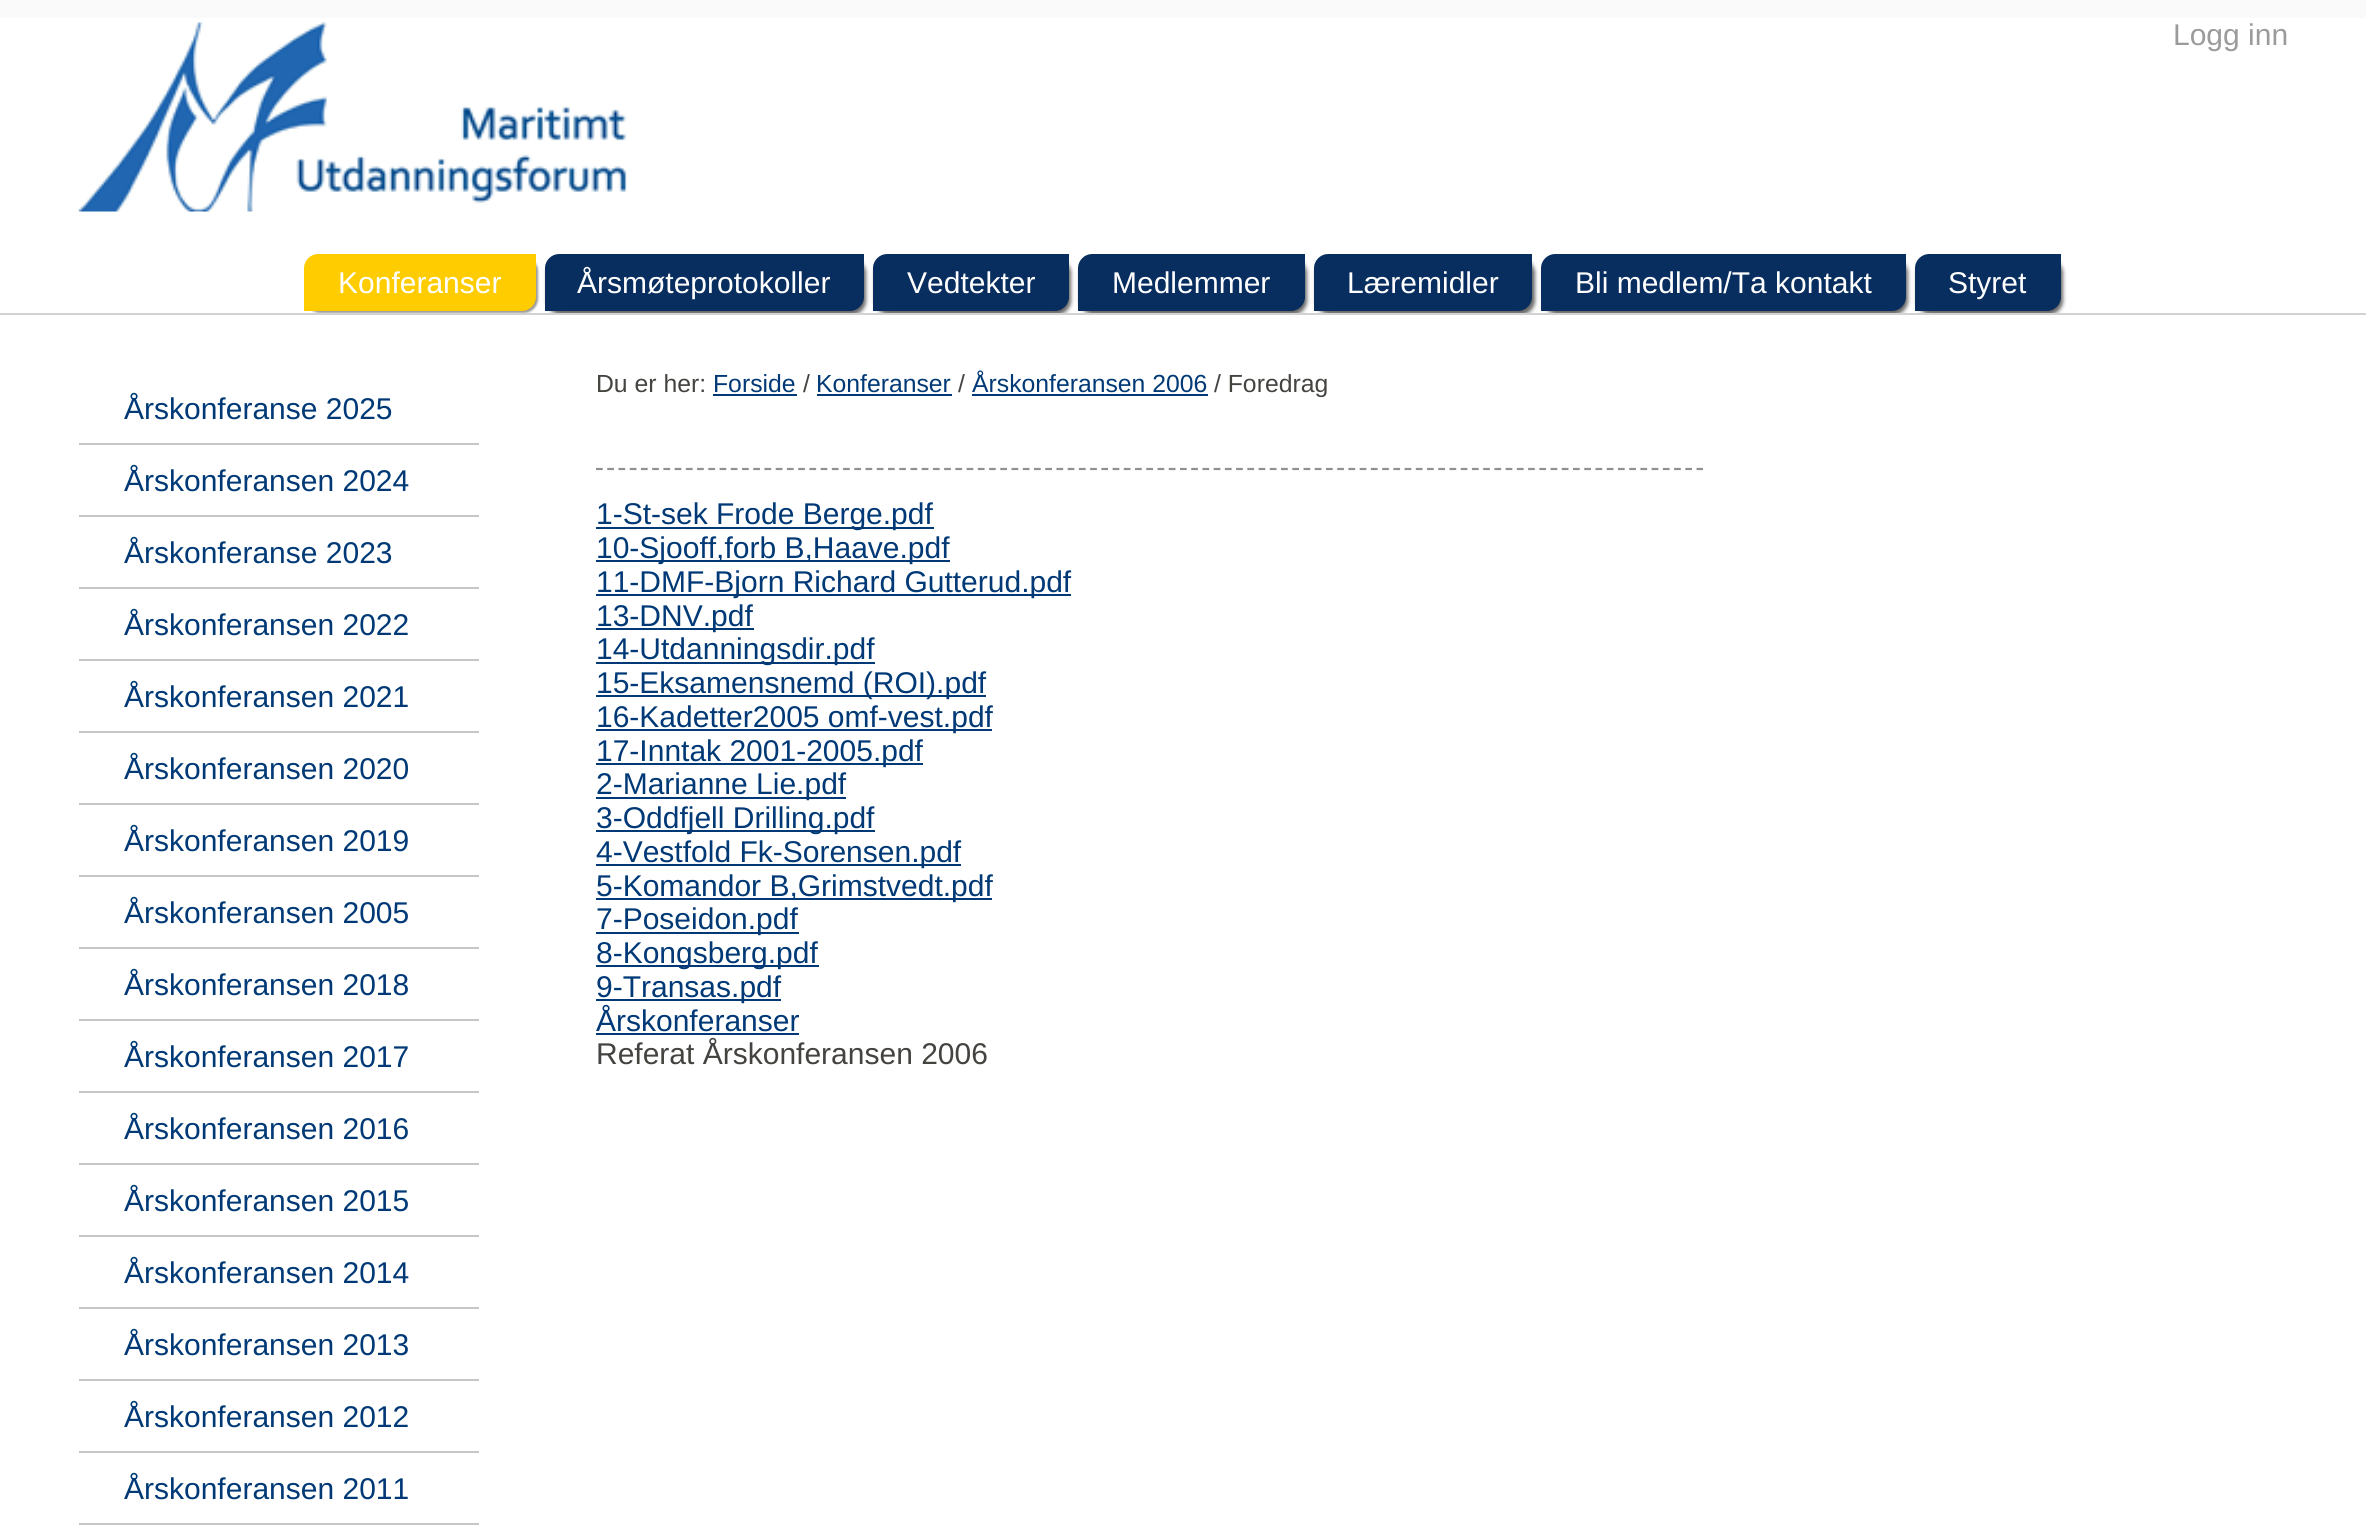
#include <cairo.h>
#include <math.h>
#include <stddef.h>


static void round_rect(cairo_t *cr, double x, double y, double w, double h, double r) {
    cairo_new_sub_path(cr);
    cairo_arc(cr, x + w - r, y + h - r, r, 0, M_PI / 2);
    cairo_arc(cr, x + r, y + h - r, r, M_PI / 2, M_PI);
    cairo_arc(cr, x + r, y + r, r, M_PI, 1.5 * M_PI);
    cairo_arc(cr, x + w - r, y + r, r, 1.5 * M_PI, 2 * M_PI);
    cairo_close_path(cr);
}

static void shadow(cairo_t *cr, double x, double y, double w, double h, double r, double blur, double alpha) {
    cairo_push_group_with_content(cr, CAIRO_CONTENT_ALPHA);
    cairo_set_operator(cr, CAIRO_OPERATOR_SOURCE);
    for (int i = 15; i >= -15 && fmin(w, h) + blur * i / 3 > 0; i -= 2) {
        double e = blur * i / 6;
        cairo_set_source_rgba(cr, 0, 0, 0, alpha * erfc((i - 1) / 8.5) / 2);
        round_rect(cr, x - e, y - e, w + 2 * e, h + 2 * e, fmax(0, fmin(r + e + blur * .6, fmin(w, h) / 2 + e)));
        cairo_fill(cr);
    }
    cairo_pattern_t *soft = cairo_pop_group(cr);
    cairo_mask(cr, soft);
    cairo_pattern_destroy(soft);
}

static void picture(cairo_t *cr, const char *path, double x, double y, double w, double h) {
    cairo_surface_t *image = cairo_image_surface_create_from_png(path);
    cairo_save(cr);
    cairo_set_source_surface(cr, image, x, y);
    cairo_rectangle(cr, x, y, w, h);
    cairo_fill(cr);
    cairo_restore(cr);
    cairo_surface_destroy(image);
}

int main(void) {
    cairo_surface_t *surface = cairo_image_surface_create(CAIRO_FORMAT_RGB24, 2366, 1537);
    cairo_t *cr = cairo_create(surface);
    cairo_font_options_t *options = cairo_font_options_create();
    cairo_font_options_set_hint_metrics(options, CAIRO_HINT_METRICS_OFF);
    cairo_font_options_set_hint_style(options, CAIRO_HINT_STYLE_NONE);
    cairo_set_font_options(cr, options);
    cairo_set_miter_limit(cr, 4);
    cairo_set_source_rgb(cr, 1, 1, 1);
    cairo_paint(cr);
    cairo_set_source_rgb(cr, 0.98, 0.98, 0.98);
    cairo_rectangle(cr, 0, 0, 2366, 18);
    cairo_fill(cr);
    picture(cr, "img1.png", 78, 22, 549, 190);
    cairo_select_font_face(cr, "Liberation Sans", CAIRO_FONT_SLANT_NORMAL, CAIRO_FONT_WEIGHT_NORMAL);
    cairo_set_font_size(cr, 30);
    cairo_set_source_rgb(cr, 0.604, 0.608, 0.604);
    cairo_move_to(cr, 2173, 45);
    cairo_show_text(cr, "Logg inn");
    cairo_set_source_rgb(cr, 0, 0, 0);
    shadow(cr, 306, 257, 232, 56, 14, 1, 0.4);
    cairo_set_source_rgb(cr, 1, 0.8, 0);
    cairo_new_path(cr);
    cairo_move_to(cr, 318, 254);
    cairo_line_to(cr, 536, 254);
    cairo_line_to(cr, 536, 297);
    cairo_curve_to(cr, 536, 304.5, 529.5, 311, 522, 311);
    cairo_line_to(cr, 304, 311);
    cairo_line_to(cr, 304, 268);
    cairo_curve_to(cr, 304, 260.5, 310.5, 254, 318, 254);
    cairo_close_path(cr);
    cairo_fill(cr);
    cairo_set_source_rgb(cr, 1, 1, 1);
    cairo_move_to(cr, 338, 293);
    cairo_show_text(cr, "Konferanser");
    cairo_set_source_rgb(cr, 0, 0, 0);
    shadow(cr, 547, 259, 319, 56, 14, 2, 0.6);
    cairo_set_source_rgb(cr, 0.035, 0.18, 0.373);
    cairo_new_path(cr);
    cairo_move_to(cr, 559, 254);
    cairo_line_to(cr, 864, 254);
    cairo_line_to(cr, 864, 297);
    cairo_curve_to(cr, 864, 304.5, 857.5, 311, 850, 311);
    cairo_line_to(cr, 545, 311);
    cairo_line_to(cr, 545, 268);
    cairo_curve_to(cr, 545, 260.5, 551.5, 254, 559, 254);
    cairo_close_path(cr);
    cairo_fill(cr);
    cairo_set_source_rgb(cr, 1, 1, 1);
    cairo_move_to(cr, 577, 293);
    cairo_show_text(cr, "Årsmøteprotokoller");
    cairo_set_source_rgb(cr, 0, 0, 0);
    shadow(cr, 875, 259, 196, 56, 14, 2, 0.6);
    cairo_set_source_rgb(cr, 0.035, 0.18, 0.373);
    cairo_new_path(cr);
    cairo_move_to(cr, 887, 254);
    cairo_line_to(cr, 1069, 254);
    cairo_line_to(cr, 1069, 297);
    cairo_curve_to(cr, 1069, 304.5, 1062.5, 311, 1055, 311);
    cairo_line_to(cr, 873, 311);
    cairo_line_to(cr, 873, 268);
    cairo_curve_to(cr, 873, 260.5, 879.5, 254, 887, 254);
    cairo_close_path(cr);
    cairo_fill(cr);
    cairo_set_source_rgb(cr, 1, 1, 1);
    cairo_move_to(cr, 907, 293);
    cairo_show_text(cr, "Vedtekter");
    cairo_set_source_rgb(cr, 0, 0, 0);
    shadow(cr, 1080, 259, 227, 56, 14, 2, 0.6);
    cairo_set_source_rgb(cr, 0.035, 0.18, 0.373);
    cairo_new_path(cr);
    cairo_move_to(cr, 1092, 254);
    cairo_line_to(cr, 1305, 254);
    cairo_line_to(cr, 1305, 297);
    cairo_curve_to(cr, 1305, 304.5, 1298.5, 311, 1291, 311);
    cairo_line_to(cr, 1078, 311);
    cairo_line_to(cr, 1078, 268);
    cairo_curve_to(cr, 1078, 260.5, 1084.5, 254, 1092, 254);
    cairo_close_path(cr);
    cairo_fill(cr);
    cairo_set_source_rgb(cr, 1, 1, 1);
    cairo_move_to(cr, 1112, 293);
    cairo_show_text(cr, "Medlemmer");
    cairo_set_source_rgb(cr, 0, 0, 0);
    shadow(cr, 1316, 259, 219, 56, 14, 2, 0.6);
    cairo_set_source_rgb(cr, 0.035, 0.18, 0.373);
    cairo_new_path(cr);
    cairo_move_to(cr, 1328, 254);
    cairo_line_to(cr, 1532, 254);
    cairo_line_to(cr, 1532, 297);
    cairo_curve_to(cr, 1532, 304.5, 1525.5, 311, 1518, 311);
    cairo_line_to(cr, 1314, 311);
    cairo_line_to(cr, 1314, 268);
    cairo_curve_to(cr, 1314, 260.5, 1320.5, 254, 1328, 254);
    cairo_close_path(cr);
    cairo_fill(cr);
    cairo_set_source_rgb(cr, 1, 1, 1);
    cairo_move_to(cr, 1347, 293);
    cairo_show_text(cr, "Læremidler");
    cairo_set_source_rgb(cr, 0, 0, 0);
    shadow(cr, 1544, 259, 364, 56, 14, 2, 0.6);
    cairo_set_source_rgb(cr, 0.035, 0.18, 0.373);
    cairo_new_path(cr);
    cairo_move_to(cr, 1555, 254);
    cairo_line_to(cr, 1906, 254);
    cairo_line_to(cr, 1906, 297);
    cairo_curve_to(cr, 1906, 304.5, 1899.5, 311, 1892, 311);
    cairo_line_to(cr, 1541, 311);
    cairo_line_to(cr, 1541, 268);
    cairo_curve_to(cr, 1541, 260.5, 1547.5, 254, 1555, 254);
    cairo_close_path(cr);
    cairo_fill(cr);
    cairo_set_source_rgb(cr, 1, 1, 1);
    cairo_move_to(cr, 1575, 293);
    cairo_show_text(cr, "Bli medlem/Ta kontakt");
    cairo_set_source_rgb(cr, 0, 0, 0);
    shadow(cr, 1917, 259, 146, 56, 14, 2, 0.6);
    cairo_set_source_rgb(cr, 0.035, 0.18, 0.373);
    cairo_new_path(cr);
    cairo_move_to(cr, 1929, 254);
    cairo_line_to(cr, 2061, 254);
    cairo_line_to(cr, 2061, 297);
    cairo_curve_to(cr, 2061, 304.5, 2054.5, 311, 2047, 311);
    cairo_line_to(cr, 1915, 311);
    cairo_line_to(cr, 1915, 268);
    cairo_curve_to(cr, 1915, 260.5, 1921.5, 254, 1929, 254);
    cairo_close_path(cr);
    cairo_fill(cr);
    cairo_set_source_rgb(cr, 1, 1, 1);
    cairo_move_to(cr, 1948, 293);
    cairo_show_text(cr, "Styret");
    cairo_rectangle(cr, 550, 315, 1510, 4);
    cairo_fill(cr);
    cairo_set_source_rgb(cr, 0.824, 0.824, 0.824);
    cairo_rectangle(cr, 0, 313, 2366, 2);
    cairo_fill(cr);
    cairo_set_source_rgb(cr, 0.776, 0.776, 0.776);
    cairo_rectangle(cr, 79, 443, 400, 2);
    cairo_fill(cr);
    cairo_set_source_rgb(cr, 0, 0.224, 0.463);
    cairo_move_to(cr, 124, 419);
    cairo_show_text(cr, "Årskonferanse 2025");
    cairo_set_source_rgb(cr, 0.776, 0.776, 0.776);
    cairo_rectangle(cr, 79, 515, 400, 2);
    cairo_fill(cr);
    cairo_set_source_rgb(cr, 0, 0.224, 0.463);
    cairo_move_to(cr, 124, 491);
    cairo_show_text(cr, "Årskonferansen 2024");
    cairo_set_source_rgb(cr, 0.776, 0.776, 0.776);
    cairo_rectangle(cr, 79, 587, 400, 2);
    cairo_fill(cr);
    cairo_set_source_rgb(cr, 0, 0.224, 0.463);
    cairo_move_to(cr, 124, 563);
    cairo_show_text(cr, "Årskonferanse 2023");
    cairo_set_source_rgb(cr, 0.776, 0.776, 0.776);
    cairo_rectangle(cr, 79, 659, 400, 2);
    cairo_fill(cr);
    cairo_set_source_rgb(cr, 0, 0.224, 0.463);
    cairo_move_to(cr, 124, 635);
    cairo_show_text(cr, "Årskonferansen 2022");
    cairo_set_source_rgb(cr, 0.776, 0.776, 0.776);
    cairo_rectangle(cr, 79, 731, 400, 2);
    cairo_fill(cr);
    cairo_set_source_rgb(cr, 0, 0.224, 0.463);
    cairo_move_to(cr, 124, 707);
    cairo_show_text(cr, "Årskonferansen 2021");
    cairo_set_source_rgb(cr, 0.776, 0.776, 0.776);
    cairo_rectangle(cr, 79, 803, 400, 2);
    cairo_fill(cr);
    cairo_set_source_rgb(cr, 0, 0.224, 0.463);
    cairo_move_to(cr, 124, 779);
    cairo_show_text(cr, "Årskonferansen 2020");
    cairo_set_source_rgb(cr, 0.776, 0.776, 0.776);
    cairo_rectangle(cr, 79, 875, 400, 2);
    cairo_fill(cr);
    cairo_set_source_rgb(cr, 0, 0.224, 0.463);
    cairo_move_to(cr, 124, 851);
    cairo_show_text(cr, "Årskonferansen 2019");
    cairo_set_source_rgb(cr, 0.776, 0.776, 0.776);
    cairo_rectangle(cr, 79, 947, 400, 2);
    cairo_fill(cr);
    cairo_set_source_rgb(cr, 0, 0.224, 0.463);
    cairo_move_to(cr, 124, 923);
    cairo_show_text(cr, "Årskonferansen 2005");
    cairo_set_source_rgb(cr, 0.776, 0.776, 0.776);
    cairo_rectangle(cr, 79, 1019, 400, 2);
    cairo_fill(cr);
    cairo_set_source_rgb(cr, 0, 0.224, 0.463);
    cairo_move_to(cr, 124, 995);
    cairo_show_text(cr, "Årskonferansen 2018");
    cairo_set_source_rgb(cr, 0.776, 0.776, 0.776);
    cairo_rectangle(cr, 79, 1091, 400, 2);
    cairo_fill(cr);
    cairo_set_source_rgb(cr, 0, 0.224, 0.463);
    cairo_move_to(cr, 124, 1067);
    cairo_show_text(cr, "Årskonferansen 2017");
    cairo_set_source_rgb(cr, 0.776, 0.776, 0.776);
    cairo_rectangle(cr, 79, 1163, 400, 2);
    cairo_fill(cr);
    cairo_set_source_rgb(cr, 0, 0.224, 0.463);
    cairo_move_to(cr, 124, 1139);
    cairo_show_text(cr, "Årskonferansen 2016");
    cairo_set_source_rgb(cr, 0.776, 0.776, 0.776);
    cairo_rectangle(cr, 79, 1235, 400, 2);
    cairo_fill(cr);
    cairo_set_source_rgb(cr, 0, 0.224, 0.463);
    cairo_move_to(cr, 124, 1211);
    cairo_show_text(cr, "Årskonferansen 2015");
    cairo_set_source_rgb(cr, 0.776, 0.776, 0.776);
    cairo_rectangle(cr, 79, 1307, 400, 2);
    cairo_fill(cr);
    cairo_set_source_rgb(cr, 0, 0.224, 0.463);
    cairo_move_to(cr, 124, 1283);
    cairo_show_text(cr, "Årskonferansen 2014");
    cairo_set_source_rgb(cr, 0.776, 0.776, 0.776);
    cairo_rectangle(cr, 79, 1379, 400, 2);
    cairo_fill(cr);
    cairo_set_source_rgb(cr, 0, 0.224, 0.463);
    cairo_move_to(cr, 124, 1355);
    cairo_show_text(cr, "Årskonferansen 2013");
    cairo_set_source_rgb(cr, 0.776, 0.776, 0.776);
    cairo_rectangle(cr, 79, 1451, 400, 2);
    cairo_fill(cr);
    cairo_set_source_rgb(cr, 0, 0.224, 0.463);
    cairo_move_to(cr, 124, 1427);
    cairo_show_text(cr, "Årskonferansen 2012");
    cairo_set_source_rgb(cr, 0.776, 0.776, 0.776);
    cairo_rectangle(cr, 79, 1523, 400, 2);
    cairo_fill(cr);
    cairo_set_source_rgb(cr, 0, 0.224, 0.463);
    cairo_move_to(cr, 124, 1499);
    cairo_show_text(cr, "Årskonferansen 2011");
    cairo_set_font_size(cr, 24.75);
    cairo_set_source_rgb(cr, 0.271, 0.263, 0.251);
    cairo_move_to(cr, 596, 392);
    cairo_show_text(cr, "Du er her:");
    cairo_set_source_rgb(cr, 0, 0.224, 0.463);
    cairo_move_to(cr, 713, 392);
    cairo_show_text(cr, "Forside");
    cairo_rectangle(cr, 713, 394, 84, 2);
    cairo_fill(cr);
    cairo_set_source_rgb(cr, 0.271, 0.263, 0.251);
    cairo_move_to(cr, 803, 392);
    cairo_show_text(cr, "/");
    cairo_set_source_rgb(cr, 0, 0.224, 0.463);
    cairo_move_to(cr, 816, 392);
    cairo_show_text(cr, "Konferanser");
    cairo_rectangle(cr, 817, 394, 135, 2);
    cairo_fill(cr);
    cairo_set_source_rgb(cr, 0.271, 0.263, 0.251);
    cairo_move_to(cr, 958, 392);
    cairo_show_text(cr, "/");
    cairo_set_source_rgb(cr, 0, 0.224, 0.463);
    cairo_move_to(cr, 972, 392);
    cairo_show_text(cr, "Årskonferansen 2006");
    cairo_set_source_rgb(cr, 0.271, 0.263, 0.251);
    cairo_move_to(cr, 1214, 392);
    cairo_show_text(cr, "/ Foredrag");
    cairo_set_source_rgb(cr, 0, 0.224, 0.463);
    cairo_rectangle(cr, 972, 394, 236, 2);
    cairo_fill(cr);
    cairo_new_path(cr);
    cairo_move_to(cr, 596, 469);
    cairo_line_to(cr, 1703, 469);
    cairo_set_source_rgb(cr, 0.565, 0.565, 0.565);
    cairo_set_line_width(cr, 2.2);
    cairo_set_dash(cr, (double[]){6.75, 4.48}, 2, 0);
    cairo_stroke(cr);
    cairo_set_source_rgb(cr, 0, 0.224, 0.463);
    cairo_rectangle(cr, 596, 527, 338, 2);
    cairo_fill(cr);
    cairo_set_font_size(cr, 30);
    cairo_move_to(cr, 596, 524);
    cairo_show_text(cr, "1-St-sek Frode Berge.pdf");
    cairo_rectangle(cr, 596, 560, 354, 2);
    cairo_fill(cr);
    cairo_move_to(cr, 596, 558);
    cairo_show_text(cr, "10-Sjooff,forb B,Haave.pdf");
    cairo_rectangle(cr, 596, 594, 475, 2);
    cairo_fill(cr);
    cairo_move_to(cr, 596, 592);
    cairo_show_text(cr, "11-DMF-Bjorn Richard Gutterud.pdf");
    cairo_rectangle(cr, 596, 628, 158, 2);
    cairo_fill(cr);
    cairo_move_to(cr, 596, 626);
    cairo_show_text(cr, "13-DNV.pdf");
    cairo_rectangle(cr, 596, 662, 279, 2);
    cairo_fill(cr);
    cairo_move_to(cr, 596, 659);
    cairo_show_text(cr, "14-Utdanningsdir.pdf");
    cairo_rectangle(cr, 596, 695, 390, 2);
    cairo_fill(cr);
    cairo_move_to(cr, 596, 693);
    cairo_show_text(cr, "15-Eksamensnemd (ROI).pdf");
    cairo_rectangle(cr, 596, 729, 396, 2);
    cairo_fill(cr);
    cairo_move_to(cr, 596, 727);
    cairo_show_text(cr, "16-Kadetter2005 omf-vest.pdf");
    cairo_rectangle(cr, 596, 763, 327, 2);
    cairo_fill(cr);
    cairo_move_to(cr, 596, 761);
    cairo_show_text(cr, "17-Inntak 2001-2005.pdf");
    cairo_rectangle(cr, 596, 797, 250, 2);
    cairo_fill(cr);
    cairo_move_to(cr, 596, 794);
    cairo_show_text(cr, "2-Marianne Lie.pdf");
    cairo_rectangle(cr, 596, 830, 279, 2);
    cairo_fill(cr);
    cairo_move_to(cr, 596, 828);
    cairo_show_text(cr, "3-Oddfjell Drilling.pdf");
    cairo_rectangle(cr, 596, 864, 365, 2);
    cairo_fill(cr);
    cairo_move_to(cr, 596, 862);
    cairo_show_text(cr, "4-Vestfold Fk-Sorensen.pdf");
    cairo_rectangle(cr, 596, 898, 396, 2);
    cairo_fill(cr);
    cairo_move_to(cr, 596, 896);
    cairo_show_text(cr, "5-Komandor B,Grimstvedt.pdf");
    cairo_rectangle(cr, 596, 932, 203, 2);
    cairo_fill(cr);
    cairo_move_to(cr, 596, 929);
    cairo_show_text(cr, "7-Poseidon.pdf");
    cairo_rectangle(cr, 596, 965, 223, 2);
    cairo_fill(cr);
    cairo_move_to(cr, 596, 963);
    cairo_show_text(cr, "8-Kongsberg.pdf");
    cairo_rectangle(cr, 596, 999, 185, 2);
    cairo_fill(cr);
    cairo_move_to(cr, 596, 997);
    cairo_show_text(cr, "9-Transas.pdf");
    cairo_move_to(cr, 596, 1031);
    cairo_show_text(cr, "Årskonferanser");
    cairo_rectangle(cr, 596, 1033, 203, 2);
    cairo_fill(cr);
    cairo_set_source_rgb(cr, 0.271, 0.263, 0.251);
    cairo_move_to(cr, 596, 1064);
    cairo_show_text(cr, "Referat Årskonferansen 2006");
    cairo_surface_write_to_png(surface, "page.png");
    cairo_font_options_destroy(options);
    cairo_destroy(cr);
    cairo_surface_destroy(surface);
    return 0;
}
